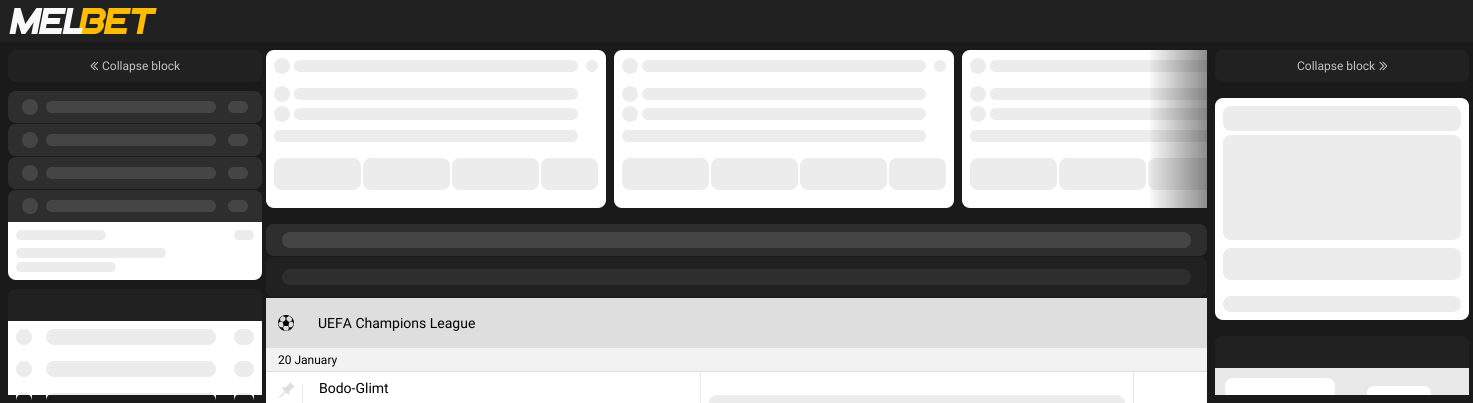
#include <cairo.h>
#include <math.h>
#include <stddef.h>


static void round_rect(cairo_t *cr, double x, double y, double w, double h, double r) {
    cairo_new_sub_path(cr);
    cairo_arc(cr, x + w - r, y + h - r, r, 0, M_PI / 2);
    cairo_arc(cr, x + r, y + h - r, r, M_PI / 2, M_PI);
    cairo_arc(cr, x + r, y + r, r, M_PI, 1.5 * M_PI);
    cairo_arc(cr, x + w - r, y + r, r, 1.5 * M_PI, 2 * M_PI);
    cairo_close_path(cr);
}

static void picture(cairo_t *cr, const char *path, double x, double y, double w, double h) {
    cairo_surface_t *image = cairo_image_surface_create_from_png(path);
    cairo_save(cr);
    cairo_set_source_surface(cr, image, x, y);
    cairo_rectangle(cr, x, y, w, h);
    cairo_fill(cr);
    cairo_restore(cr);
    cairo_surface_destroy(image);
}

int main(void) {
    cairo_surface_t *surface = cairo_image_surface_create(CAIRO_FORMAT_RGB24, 1473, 403);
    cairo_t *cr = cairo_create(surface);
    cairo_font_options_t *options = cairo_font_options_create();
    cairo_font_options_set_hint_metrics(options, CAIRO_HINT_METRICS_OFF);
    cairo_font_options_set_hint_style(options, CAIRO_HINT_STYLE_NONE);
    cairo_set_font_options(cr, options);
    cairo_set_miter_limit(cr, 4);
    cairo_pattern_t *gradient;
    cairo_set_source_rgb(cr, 0.102, 0.102, 0.102);
    cairo_paint(cr);
    cairo_set_source_rgb(cr, 0.129, 0.129, 0.129);
    cairo_rectangle(cr, 0, 0, 1473, 42);
    cairo_fill(cr);
    picture(cr, "img1.png", 9, 8, 148, 26);
    round_rect(cr, 8, 50, 254, 32, 8);
    cairo_fill(cr);
    picture(cr, "img2.png", 90, 61, 8, 10);
    cairo_select_font_face(cr, "Roboto", CAIRO_FONT_SLANT_NORMAL, CAIRO_FONT_WEIGHT_NORMAL);
    cairo_set_font_size(cr, 12);
    cairo_set_source_rgb(cr, 0.761, 0.761, 0.761);
    cairo_move_to(cr, 102, 70);
    cairo_show_text(cr, "Collapse block");
    cairo_set_source_rgb(cr, 0.18, 0.18, 0.18);
    round_rect(cr, 8, 91, 254, 32, 8);
    cairo_fill(cr);
    cairo_set_source_rgb(cr, 0.271, 0.271, 0.271);
    cairo_arc(cr, 30, 107, 8, 0, 2 * M_PI);
    cairo_fill(cr);
    round_rect(cr, 46, 101, 170, 12, 6);
    cairo_fill(cr);
    round_rect(cr, 228, 101, 20, 12, 6);
    cairo_fill(cr);
    cairo_set_source_rgb(cr, 0.18, 0.18, 0.18);
    round_rect(cr, 8, 124, 254, 32, 8);
    cairo_fill(cr);
    cairo_set_source_rgb(cr, 0.271, 0.271, 0.271);
    cairo_arc(cr, 30, 140, 8, 0, 2 * M_PI);
    cairo_fill(cr);
    round_rect(cr, 46, 134, 170, 12, 6);
    cairo_fill(cr);
    round_rect(cr, 228, 134, 20, 12, 6);
    cairo_fill(cr);
    cairo_set_source_rgb(cr, 0.18, 0.18, 0.18);
    round_rect(cr, 8, 157, 254, 32, 8);
    cairo_fill(cr);
    cairo_set_source_rgb(cr, 0.271, 0.271, 0.271);
    cairo_arc(cr, 30, 173, 8, 0, 2 * M_PI);
    cairo_fill(cr);
    round_rect(cr, 46, 167, 170, 12, 6);
    cairo_fill(cr);
    round_rect(cr, 228, 167, 20, 12, 6);
    cairo_fill(cr);
    cairo_set_source_rgb(cr, 0.18, 0.18, 0.18);
    cairo_new_path(cr);
    cairo_move_to(cr, 16, 190);
    cairo_line_to(cr, 254, 190);
    cairo_curve_to(cr, 258.5, 190, 262, 193.5, 262, 198);
    cairo_line_to(cr, 262, 222);
    cairo_line_to(cr, 8, 222);
    cairo_line_to(cr, 8, 198);
    cairo_curve_to(cr, 8, 193.5, 11.5, 190, 16, 190);
    cairo_close_path(cr);
    cairo_fill(cr);
    cairo_set_source_rgb(cr, 0.271, 0.271, 0.271);
    cairo_arc(cr, 30, 206, 8, 0, 2 * M_PI);
    cairo_fill(cr);
    round_rect(cr, 46, 200, 170, 12, 6);
    cairo_fill(cr);
    round_rect(cr, 228, 200, 20, 12, 6);
    cairo_fill(cr);
    cairo_set_source_rgb(cr, 1, 1, 1);
    cairo_new_path(cr);
    cairo_move_to(cr, 8, 222);
    cairo_line_to(cr, 262, 222);
    cairo_line_to(cr, 262, 272);
    cairo_curve_to(cr, 262, 276.5, 258.5, 280, 254, 280);
    cairo_line_to(cr, 16, 280);
    cairo_curve_to(cr, 11.5, 280, 8, 276.5, 8, 272);
    cairo_close_path(cr);
    cairo_fill(cr);
    cairo_set_source_rgb(cr, 0.922, 0.922, 0.922);
    round_rect(cr, 16, 230, 90, 10, 5);
    cairo_fill(cr);
    round_rect(cr, 16, 248, 150, 10, 5);
    cairo_fill(cr);
    round_rect(cr, 16, 262, 100, 10, 5);
    cairo_fill(cr);
    round_rect(cr, 234, 230, 20, 10, 5);
    cairo_fill(cr);
    cairo_set_source_rgb(cr, 0.129, 0.129, 0.129);
    cairo_new_path(cr);
    cairo_move_to(cr, 16, 289);
    cairo_line_to(cr, 254, 289);
    cairo_curve_to(cr, 258.5, 289, 262, 292.5, 262, 297);
    cairo_line_to(cr, 262, 321);
    cairo_line_to(cr, 8, 321);
    cairo_line_to(cr, 8, 297);
    cairo_curve_to(cr, 8, 292.5, 11.5, 289, 16, 289);
    cairo_close_path(cr);
    cairo_fill(cr);
    cairo_set_source_rgb(cr, 1, 1, 1);
    cairo_rectangle(cr, 8, 321, 254, 74);
    cairo_fill(cr);
    cairo_set_source_rgb(cr, 0.922, 0.922, 0.922);
    cairo_arc(cr, 24, 337, 8, 0, 2 * M_PI);
    cairo_fill(cr);
    round_rect(cr, 46, 329, 170, 16, 8);
    cairo_fill(cr);
    round_rect(cr, 234, 329, 20, 16, 8);
    cairo_fill(cr);
    cairo_arc(cr, 24, 369, 8, 0, 2 * M_PI);
    cairo_fill(cr);
    round_rect(cr, 46, 361, 170, 16, 8);
    cairo_fill(cr);
    round_rect(cr, 234, 361, 20, 16, 8);
    cairo_fill(cr);
    cairo_new_path(cr);
    cairo_move_to(cr, 24, 393);
    cairo_curve_to(cr, 28.5, 393, 32, 396.5, 32, 401);
    cairo_line_to(cr, 32, 395);
    cairo_line_to(cr, 16, 395);
    cairo_line_to(cr, 16, 401);
    cairo_curve_to(cr, 16, 396.5, 19.5, 393, 24, 393);
    cairo_close_path(cr);
    cairo_fill(cr);
    cairo_new_path(cr);
    cairo_move_to(cr, 54, 393);
    cairo_line_to(cr, 208, 393);
    cairo_curve_to(cr, 212.5, 393, 216, 396.5, 216, 401);
    cairo_line_to(cr, 216, 395);
    cairo_line_to(cr, 46, 395);
    cairo_line_to(cr, 46, 401);
    cairo_curve_to(cr, 46, 396.5, 49.5, 393, 54, 393);
    cairo_close_path(cr);
    cairo_fill(cr);
    cairo_new_path(cr);
    cairo_move_to(cr, 242, 393);
    cairo_line_to(cr, 246, 393);
    cairo_curve_to(cr, 250.5, 393, 254, 396.5, 254, 401);
    cairo_line_to(cr, 254, 395);
    cairo_line_to(cr, 234, 395);
    cairo_line_to(cr, 234, 401);
    cairo_curve_to(cr, 234, 396.5, 237.5, 393, 242, 393);
    cairo_close_path(cr);
    cairo_fill(cr);
    cairo_set_source_rgb(cr, 0.129, 0.129, 0.129);
    round_rect(cr, 1215, 50, 254, 32, 8);
    cairo_fill(cr);
    cairo_set_source_rgb(cr, 0.761, 0.761, 0.761);
    cairo_move_to(cr, 1297, 70);
    cairo_show_text(cr, "Collapse block");
    picture(cr, "img3.png", 1379, 61, 8, 10);
    cairo_set_source_rgb(cr, 1, 1, 1);
    round_rect(cr, 1215, 98, 254, 222, 8);
    cairo_fill(cr);
    cairo_set_source_rgb(cr, 0.922, 0.922, 0.922);
    round_rect(cr, 1223, 106, 238, 25, 8);
    cairo_fill(cr);
    round_rect(cr, 1223, 135, 238, 105, 8);
    cairo_fill(cr);
    round_rect(cr, 1223, 248, 238, 32, 8);
    cairo_fill(cr);
    round_rect(cr, 1223, 296, 238, 16, 8);
    cairo_fill(cr);
    cairo_set_source_rgb(cr, 0.129, 0.129, 0.129);
    cairo_new_path(cr);
    cairo_move_to(cr, 1223, 336);
    cairo_line_to(cr, 1461, 336);
    cairo_curve_to(cr, 1465.5, 336, 1469, 339.5, 1469, 344);
    cairo_line_to(cr, 1469, 368);
    cairo_line_to(cr, 1215, 368);
    cairo_line_to(cr, 1215, 344);
    cairo_curve_to(cr, 1215, 339.5, 1218.5, 336, 1223, 336);
    cairo_close_path(cr);
    cairo_fill(cr);
    cairo_set_source_rgb(cr, 0.91, 0.91, 0.91);
    cairo_rectangle(cr, 1215, 368, 254, 27);
    cairo_fill(cr);
    cairo_set_source_rgb(cr, 1, 1, 1);
    cairo_new_path(cr);
    cairo_move_to(cr, 1233, 378);
    cairo_line_to(cr, 1327, 378);
    cairo_curve_to(cr, 1331.5, 378, 1335, 381.5, 1335, 386);
    cairo_line_to(cr, 1335, 395);
    cairo_line_to(cr, 1225, 395);
    cairo_line_to(cr, 1225, 386);
    cairo_curve_to(cr, 1225, 381.5, 1228.5, 378, 1233, 378);
    cairo_close_path(cr);
    cairo_fill(cr);
    cairo_save(cr);
    cairo_rectangle(cr, 1215, 50, 254, 345);
    cairo_clip(cr);
    round_rect(cr, 1367, 386, 64, 14, 7);
    cairo_fill(cr);
    cairo_restore(cr);
    round_rect(cr, 266, 50, 340, 158, 8);
    cairo_fill(cr);
    cairo_set_source_rgb(cr, 0.922, 0.922, 0.922);
    cairo_arc(cr, 282, 66, 8, 0, 2 * M_PI);
    cairo_fill(cr);
    round_rect(cr, 294, 60, 284, 12, 6);
    cairo_fill(cr);
    cairo_arc(cr, 282, 94, 8, 0, 2 * M_PI);
    cairo_fill(cr);
    round_rect(cr, 294, 88, 284, 12, 6);
    cairo_fill(cr);
    cairo_arc(cr, 282, 114, 8, 0, 2 * M_PI);
    cairo_fill(cr);
    round_rect(cr, 294, 108, 284, 12, 6);
    cairo_fill(cr);
    cairo_arc(cr, 592, 66, 6, 0, 2 * M_PI);
    cairo_fill(cr);
    round_rect(cr, 274, 130, 304, 12, 6);
    cairo_fill(cr);
    round_rect(cr, 274, 158, 87, 32, 8);
    cairo_fill(cr);
    round_rect(cr, 363, 158, 87, 32, 8);
    cairo_fill(cr);
    round_rect(cr, 452, 158, 87, 32, 8);
    cairo_fill(cr);
    round_rect(cr, 541, 158, 57, 32, 8);
    cairo_fill(cr);
    cairo_set_source_rgb(cr, 1, 1, 1);
    round_rect(cr, 614, 50, 340, 158, 8);
    cairo_fill(cr);
    cairo_set_source_rgb(cr, 0.922, 0.922, 0.922);
    cairo_arc(cr, 630, 66, 8, 0, 2 * M_PI);
    cairo_fill(cr);
    round_rect(cr, 642, 60, 284, 12, 6);
    cairo_fill(cr);
    cairo_arc(cr, 630, 94, 8, 0, 2 * M_PI);
    cairo_fill(cr);
    round_rect(cr, 642, 88, 284, 12, 6);
    cairo_fill(cr);
    cairo_arc(cr, 630, 114, 8, 0, 2 * M_PI);
    cairo_fill(cr);
    round_rect(cr, 642, 108, 284, 12, 6);
    cairo_fill(cr);
    cairo_arc(cr, 940, 66, 6, 0, 2 * M_PI);
    cairo_fill(cr);
    round_rect(cr, 622, 130, 304, 12, 6);
    cairo_fill(cr);
    round_rect(cr, 622, 158, 87, 32, 8);
    cairo_fill(cr);
    round_rect(cr, 711, 158, 87, 32, 8);
    cairo_fill(cr);
    round_rect(cr, 800, 158, 87, 32, 8);
    cairo_fill(cr);
    round_rect(cr, 889, 158, 57, 32, 8);
    cairo_fill(cr);
    cairo_set_source_rgb(cr, 1, 1, 1);
    cairo_new_path(cr);
    cairo_move_to(cr, 970, 50);
    cairo_line_to(cr, 1207, 50);
    cairo_line_to(cr, 1207, 208);
    cairo_line_to(cr, 970, 208);
    cairo_curve_to(cr, 965.5, 208, 962, 204.5, 962, 200);
    cairo_line_to(cr, 962, 58);
    cairo_curve_to(cr, 962, 53.5, 965.5, 50, 970, 50);
    cairo_close_path(cr);
    cairo_fill(cr);
    cairo_set_source_rgb(cr, 0.922, 0.922, 0.922);
    cairo_arc(cr, 978, 66, 8, 0, 2 * M_PI);
    cairo_fill(cr);
    cairo_new_path(cr);
    cairo_move_to(cr, 996, 60);
    cairo_line_to(cr, 1207, 60);
    cairo_line_to(cr, 1207, 72);
    cairo_line_to(cr, 996, 72);
    cairo_curve_to(cr, 992.5, 72, 990, 69.5, 990, 66);
    cairo_curve_to(cr, 990, 62.5, 992.5, 60, 996, 60);
    cairo_close_path(cr);
    cairo_fill(cr);
    cairo_arc(cr, 978, 94, 8, 0, 2 * M_PI);
    cairo_fill(cr);
    cairo_new_path(cr);
    cairo_move_to(cr, 996, 88);
    cairo_line_to(cr, 1207, 88);
    cairo_line_to(cr, 1207, 100);
    cairo_line_to(cr, 996, 100);
    cairo_curve_to(cr, 992.5, 100, 990, 97.5, 990, 94);
    cairo_curve_to(cr, 990, 90.5, 992.5, 88, 996, 88);
    cairo_close_path(cr);
    cairo_fill(cr);
    cairo_arc(cr, 978, 114, 8, 0, 2 * M_PI);
    cairo_fill(cr);
    cairo_new_path(cr);
    cairo_move_to(cr, 996, 108);
    cairo_line_to(cr, 1207, 108);
    cairo_line_to(cr, 1207, 120);
    cairo_line_to(cr, 996, 120);
    cairo_curve_to(cr, 992.5, 120, 990, 117.5, 990, 114);
    cairo_curve_to(cr, 990, 110.5, 992.5, 108, 996, 108);
    cairo_close_path(cr);
    cairo_fill(cr);
    cairo_new_path(cr);
    cairo_move_to(cr, 976, 130);
    cairo_line_to(cr, 1207, 130);
    cairo_line_to(cr, 1207, 142);
    cairo_line_to(cr, 976, 142);
    cairo_curve_to(cr, 972.5, 142, 970, 139.5, 970, 136);
    cairo_curve_to(cr, 970, 132.5, 972.5, 130, 976, 130);
    cairo_close_path(cr);
    cairo_fill(cr);
    round_rect(cr, 970, 158, 87, 32, 8);
    cairo_fill(cr);
    round_rect(cr, 1059, 158, 87, 32, 8);
    cairo_fill(cr);
    cairo_new_path(cr);
    cairo_move_to(cr, 1156, 158);
    cairo_line_to(cr, 1207, 158);
    cairo_line_to(cr, 1207, 190);
    cairo_line_to(cr, 1156, 190);
    cairo_curve_to(cr, 1151.5, 190, 1148, 186.5, 1148, 182);
    cairo_line_to(cr, 1148, 166);
    cairo_curve_to(cr, 1148, 161.5, 1151.5, 158, 1156, 158);
    cairo_close_path(cr);
    cairo_fill(cr);
    gradient = cairo_pattern_create_linear(1147, 133, 1207, 133);
    cairo_pattern_add_color_stop_rgba(gradient, 0, 0.102, 0.102, 0.102, 0);
    cairo_pattern_add_color_stop_rgba(gradient, 1, 0.102, 0.102, 0.102, 0.5);
    cairo_set_source(cr, gradient);
    cairo_pattern_destroy(gradient);
    cairo_rectangle(cr, 1150, 50, 57, 158);
    cairo_fill(cr);
    cairo_set_source_rgb(cr, 0.18, 0.18, 0.18);
    round_rect(cr, 266, 224, 941, 32, 8);
    cairo_fill(cr);
    cairo_set_source_rgb(cr, 0.271, 0.271, 0.271);
    round_rect(cr, 282, 232, 909, 16, 8);
    cairo_fill(cr);
    cairo_set_source_rgb(cr, 0.129, 0.129, 0.129);
    round_rect(cr, 266, 257, 941, 40, 8);
    cairo_fill(cr);
    cairo_set_source_rgb(cr, 0.18, 0.18, 0.18);
    round_rect(cr, 282, 269, 909, 16, 8);
    cairo_fill(cr);
    cairo_set_source_rgb(cr, 1, 1, 1);
    cairo_rectangle(cr, 266, 372, 941, 31);
    cairo_fill(cr);
    cairo_set_source_rgb(cr, 0.871, 0.871, 0.871);
    cairo_rectangle(cr, 266, 298, 415, 50);
    cairo_fill(cr);
    picture(cr, "img4.png", 278, 315, 16, 16);
    cairo_set_font_size(cr, 14);
    cairo_set_source_rgb(cr, 0, 0, 0);
    cairo_move_to(cr, 318, 328);
    cairo_show_text(cr, "UEFA Champions League");
    cairo_set_source_rgb(cr, 0.871, 0.871, 0.871);
    cairo_rectangle(cr, 681, 298, 526, 50);
    cairo_fill(cr);
    cairo_set_source_rgb(cr, 0.949, 0.949, 0.949);
    cairo_rectangle(cr, 266, 348, 941, 23);
    cairo_fill(cr);
    cairo_set_source_rgb(cr, 0.871, 0.871, 0.871);
    cairo_rectangle(cr, 266, 371, 941, 1);
    cairo_fill(cr);
    cairo_set_font_size(cr, 12);
    cairo_set_source_rgb(cr, 0, 0, 0);
    cairo_move_to(cr, 278, 364);
    cairo_show_text(cr, "20 January");
    picture(cr, "img5.png", 278, 382, 17, 16);
    cairo_set_source_rgb(cr, 0.91, 0.91, 0.91);
    cairo_rectangle(cr, 302, 384, 1, 19);
    cairo_fill(cr);
    cairo_set_font_size(cr, 14);
    cairo_set_source_rgb(cr, 0, 0, 0);
    cairo_move_to(cr, 319, 393);
    cairo_show_text(cr, "Bodo-Glimt");
    cairo_set_source_rgb(cr, 0.91, 0.91, 0.91);
    cairo_rectangle(cr, 700, 372, 1, 31);
    cairo_fill(cr);
    cairo_set_source_rgb(cr, 0.922, 0.922, 0.922);
    round_rect(cr, 709, 395, 416, 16, 8);
    cairo_fill(cr);
    cairo_set_source_rgb(cr, 0.91, 0.91, 0.91);
    cairo_rectangle(cr, 1133, 372, 1, 31);
    cairo_fill(cr);
    cairo_surface_write_to_png(surface, "page.png");
    cairo_font_options_destroy(options);
    cairo_destroy(cr);
    cairo_surface_destroy(surface);
    return 0;
}
